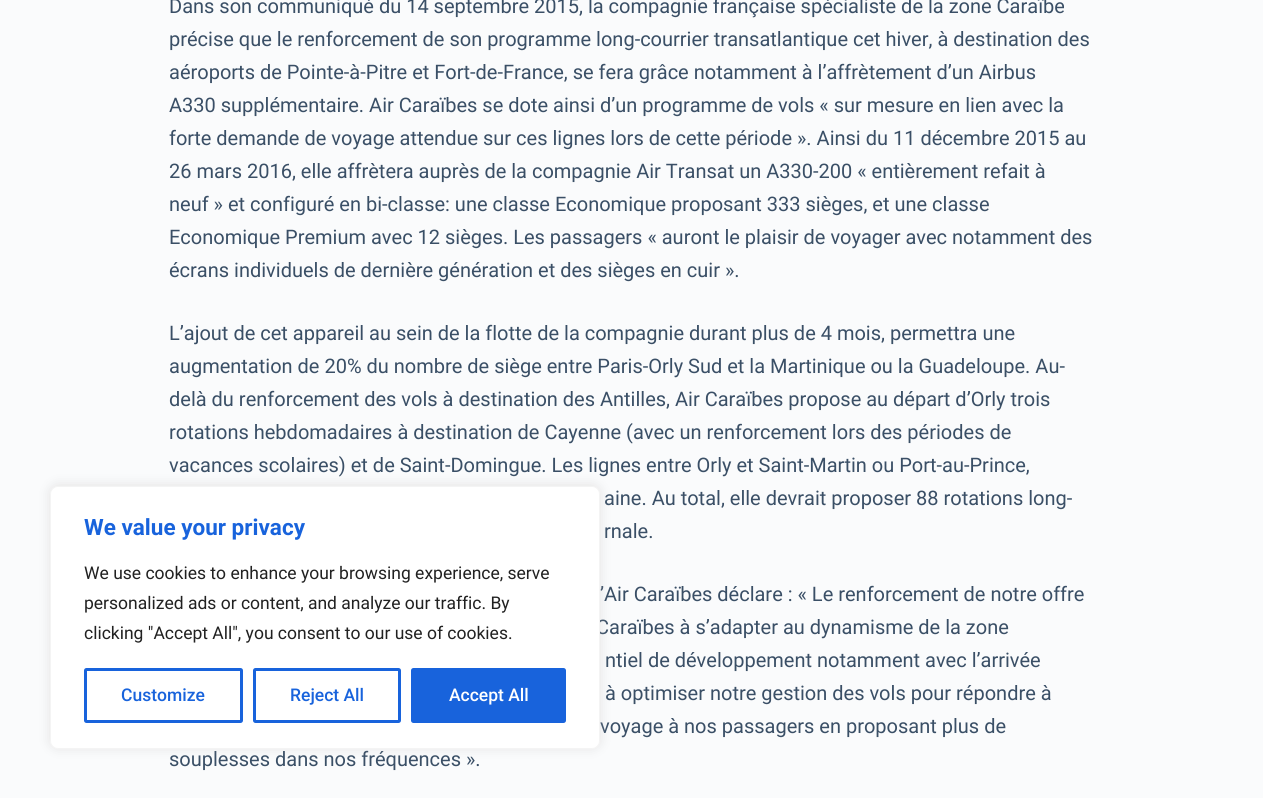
#include <cairo.h>
#include <math.h>
#include <stddef.h>


static void round_rect(cairo_t *cr, double x, double y, double w, double h, double r) {
    cairo_new_sub_path(cr);
    cairo_arc(cr, x + w - r, y + h - r, r, 0, M_PI / 2);
    cairo_arc(cr, x + r, y + h - r, r, M_PI / 2, M_PI);
    cairo_arc(cr, x + r, y + r, r, M_PI, 1.5 * M_PI);
    cairo_arc(cr, x + w - r, y + r, r, 1.5 * M_PI, 2 * M_PI);
    cairo_close_path(cr);
}

static void shadow(cairo_t *cr, double x, double y, double w, double h, double r, double blur, double alpha) {
    cairo_push_group_with_content(cr, CAIRO_CONTENT_ALPHA);
    cairo_set_operator(cr, CAIRO_OPERATOR_SOURCE);
    for (int i = 15; i >= -15 && fmin(w, h) + blur * i / 3 > 0; i -= 2) {
        double e = blur * i / 6;
        cairo_set_source_rgba(cr, 0, 0, 0, alpha * erfc((i - 1) / 8.5) / 2);
        round_rect(cr, x - e, y - e, w + 2 * e, h + 2 * e, fmax(0, fmin(r + e + blur * .6, fmin(w, h) / 2 + e)));
        cairo_fill(cr);
    }
    cairo_pattern_t *soft = cairo_pop_group(cr);
    cairo_mask(cr, soft);
    cairo_pattern_destroy(soft);
}

int main(void) {
    cairo_surface_t *surface = cairo_image_surface_create(CAIRO_FORMAT_RGB24, 1263, 798);
    cairo_t *cr = cairo_create(surface);
    cairo_font_options_t *options = cairo_font_options_create();
    cairo_font_options_set_hint_metrics(options, CAIRO_HINT_METRICS_OFF);
    cairo_font_options_set_hint_style(options, CAIRO_HINT_STYLE_NONE);
    cairo_set_font_options(cr, options);
    cairo_set_miter_limit(cr, 4);
    cairo_set_source_rgb(cr, 0.98, 0.984, 0.988);
    cairo_paint(cr);
    cairo_select_font_face(cr, "Roboto", CAIRO_FONT_SLANT_NORMAL, CAIRO_FONT_WEIGHT_NORMAL);
    cairo_set_font_size(cr, 20);
    cairo_set_source_rgb(cr, 0.227, 0.31, 0.4);
    cairo_move_to(cr, 169, 13);
    cairo_show_text(cr, "Dans son communiqué du 14 septembre 2015, la compagnie française spécialiste de la zone Caraïbe");
    cairo_move_to(cr, 169, 46);
    cairo_show_text(cr, "précise que le renforcement de son programme long-courrier transatlantique cet hiver, à destination des");
    cairo_move_to(cr, 169, 79);
    cairo_show_text(cr, "aéroports de Pointe-à-Pitre et Fort-de-France, se fera grâce notamment à l’affrètement d’un Airbus");
    cairo_move_to(cr, 169, 112);
    cairo_show_text(cr, "A330 supplémentaire. Air Caraïbes se dote ainsi d’un programme de vols « sur mesure en lien avec la");
    cairo_move_to(cr, 169, 145);
    cairo_show_text(cr, "forte demande de voyage attendue sur ces lignes lors de cette période ». Ainsi du 11 décembre 2015 au");
    cairo_move_to(cr, 169, 178);
    cairo_show_text(cr, "26 mars 2016, elle affrètera auprès de la compagnie Air Transat un A330-200 « entièrement refait à");
    cairo_move_to(cr, 169, 211);
    cairo_show_text(cr, "neuf » et configuré en bi-classe: une classe Economique proposant 333 sièges, et une classe");
    cairo_move_to(cr, 169, 244);
    cairo_show_text(cr, "Economique Premium avec 12 sièges. Les passagers « auront le plaisir de voyager avec notamment des");
    cairo_move_to(cr, 169, 277);
    cairo_show_text(cr, "écrans individuels de dernière génération et des sièges en cuir ».");
    cairo_move_to(cr, 169, 340);
    cairo_show_text(cr, "L’ajout de cet appareil au sein de la flotte de la compagnie durant plus de 4 mois, permettra une");
    cairo_move_to(cr, 169, 373);
    cairo_show_text(cr, "augmentation de 20% du nombre de siège entre Paris-Orly Sud et la Martinique ou la Guadeloupe. Au-");
    cairo_move_to(cr, 169, 406);
    cairo_show_text(cr, "delà du renforcement des vols à destination des Antilles, Air Caraïbes propose au départ d’Orly trois");
    cairo_move_to(cr, 169, 439);
    cairo_show_text(cr, "rotations hebdomadaires à destination de Cayenne (avec un renforcement lors des périodes de");
    cairo_move_to(cr, 169, 472);
    cairo_show_text(cr, "vacances scolaires) et de Saint-Domingue. Les lignes entre Orly et Saint-Martin ou Port-au-Prince,");
    cairo_move_to(cr, 604, 505);
    cairo_show_text(cr, "aine. Au total, elle devrait proposer 88 rotations long-");
    cairo_move_to(cr, 604, 538);
    cairo_show_text(cr, "rnale.");
    cairo_move_to(cr, 600, 601);
    cairo_show_text(cr, "’Air Caraïbes déclare : « Le renforcement de notre offre");
    cairo_move_to(cr, 596, 634);
    cairo_show_text(cr, "Caraïbes à s’adapter au dynamisme de la zone");
    cairo_move_to(cr, 605, 667);
    cairo_show_text(cr, "ntiel de développement notamment avec l’arrivée");
    cairo_move_to(cr, 605, 700);
    cairo_show_text(cr, "à optimiser notre gestion des vols pour répondre à");
    cairo_move_to(cr, 600, 733);
    cairo_show_text(cr, "voyage à nos passagers en proposant plus de");
    cairo_move_to(cr, 169, 766);
    cairo_show_text(cr, "souplesses dans nos fréquences ».");
    cairo_set_source_rgb(cr, 0.675, 0.671, 0.671);
    shadow(cr, 50, 485, 550, 263, 8, 6, 0.3);
    cairo_set_source_rgb(cr, 1, 1, 1);
    round_rect(cr, 50.5, 486.5, 549, 262, 7.5);
    cairo_fill_preserve(cr);
    cairo_set_source_rgb(cr, 0.957, 0.957, 0.957);
    cairo_set_line_width(cr, 1);
    cairo_stroke(cr);
    cairo_select_font_face(cr, "Roboto", CAIRO_FONT_SLANT_NORMAL, CAIRO_FONT_WEIGHT_BOLD);
    cairo_set_font_size(cr, 22.5);
    cairo_set_source_rgb(cr, 0.094, 0.388, 0.863);
    cairo_move_to(cr, 84, 535);
    cairo_show_text(cr, "We value your privacy");
    cairo_select_font_face(cr, "Roboto", CAIRO_FONT_SLANT_NORMAL, CAIRO_FONT_WEIGHT_NORMAL);
    cairo_set_font_size(cr, 17.5);
    cairo_set_source_rgb(cr, 0.129, 0.129, 0.129);
    cairo_move_to(cr, 84, 579);
    cairo_show_text(cr, "We use cookies to enhance your browsing experience, serve");
    cairo_move_to(cr, 84, 609);
    cairo_show_text(cr, "personalized ads or content, and analyze our traffic. By");
    cairo_move_to(cr, 84, 639);
    cairo_show_text(cr, "clicking \"Accept All\", you consent to our use of cookies.");
    round_rect(cr, 85.5, 669.5, 156, 52, 1);
    cairo_set_source_rgb(cr, 0.094, 0.388, 0.863);
    cairo_set_line_width(cr, 3);
    cairo_stroke(cr);
    cairo_select_font_face(cr, "Roboto Medium", CAIRO_FONT_SLANT_NORMAL, CAIRO_FONT_WEIGHT_NORMAL);
    cairo_move_to(cr, 121, 701);
    cairo_show_text(cr, "Customize");
    round_rect(cr, 254.5, 669.5, 145, 52, 1);
    cairo_stroke(cr);
    cairo_move_to(cr, 290, 701);
    cairo_show_text(cr, "Reject All");
    round_rect(cr, 412.5, 669.5, 152, 52, 1);
    cairo_fill_preserve(cr);
    cairo_stroke(cr);
    cairo_set_source_rgb(cr, 1, 1, 1);
    cairo_move_to(cr, 449, 701);
    cairo_show_text(cr, "Accept All");
    cairo_surface_write_to_png(surface, "page.png");
    cairo_font_options_destroy(options);
    cairo_destroy(cr);
    cairo_surface_destroy(surface);
    return 0;
}
